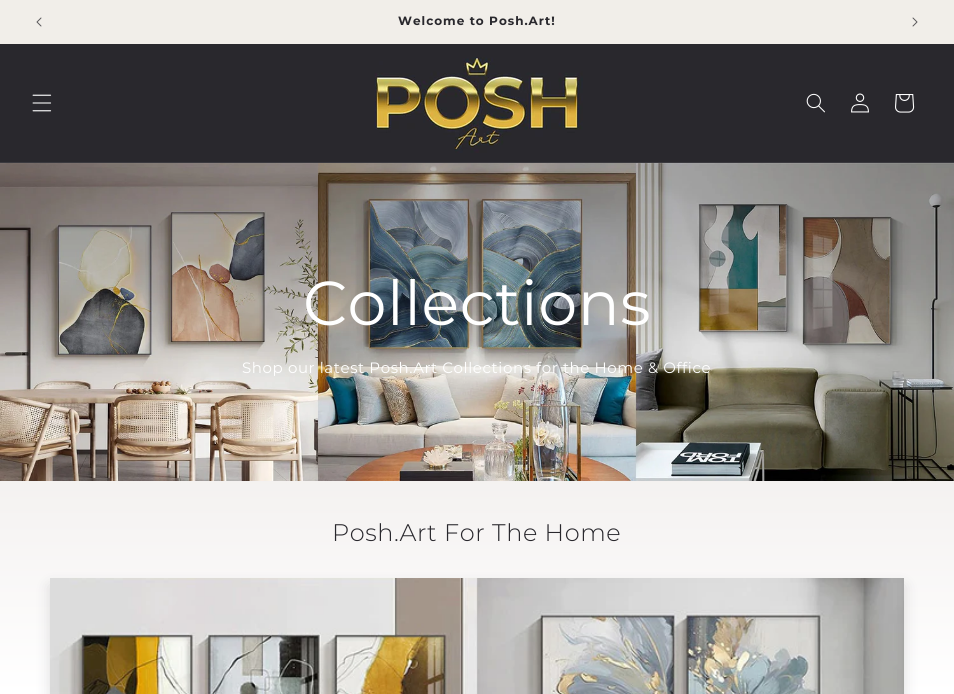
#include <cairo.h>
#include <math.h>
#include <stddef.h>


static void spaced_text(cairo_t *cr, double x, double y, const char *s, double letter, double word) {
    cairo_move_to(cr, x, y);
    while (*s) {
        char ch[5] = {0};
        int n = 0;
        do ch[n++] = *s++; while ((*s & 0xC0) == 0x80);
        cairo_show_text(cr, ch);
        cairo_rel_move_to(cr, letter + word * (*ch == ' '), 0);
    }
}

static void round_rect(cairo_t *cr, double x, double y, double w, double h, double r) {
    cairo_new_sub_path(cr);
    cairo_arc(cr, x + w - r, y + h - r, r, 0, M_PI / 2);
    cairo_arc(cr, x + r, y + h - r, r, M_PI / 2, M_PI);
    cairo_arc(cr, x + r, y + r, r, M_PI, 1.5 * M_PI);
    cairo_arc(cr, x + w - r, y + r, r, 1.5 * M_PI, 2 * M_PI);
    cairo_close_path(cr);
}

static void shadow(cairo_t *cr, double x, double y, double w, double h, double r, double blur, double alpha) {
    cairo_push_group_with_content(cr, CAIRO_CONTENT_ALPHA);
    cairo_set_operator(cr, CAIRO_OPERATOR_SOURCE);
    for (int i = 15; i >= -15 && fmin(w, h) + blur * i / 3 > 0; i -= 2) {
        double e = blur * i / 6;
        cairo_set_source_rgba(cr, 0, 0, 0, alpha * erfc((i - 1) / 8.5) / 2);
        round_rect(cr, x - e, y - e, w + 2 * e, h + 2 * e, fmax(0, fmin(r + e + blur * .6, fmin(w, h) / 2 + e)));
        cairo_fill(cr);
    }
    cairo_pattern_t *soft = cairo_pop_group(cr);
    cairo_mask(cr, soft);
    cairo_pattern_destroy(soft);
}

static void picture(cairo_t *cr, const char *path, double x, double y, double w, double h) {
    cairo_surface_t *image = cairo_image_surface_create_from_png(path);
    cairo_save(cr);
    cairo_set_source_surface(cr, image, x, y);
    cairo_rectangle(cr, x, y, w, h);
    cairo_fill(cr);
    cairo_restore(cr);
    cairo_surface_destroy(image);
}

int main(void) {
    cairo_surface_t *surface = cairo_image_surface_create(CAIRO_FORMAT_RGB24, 954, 694);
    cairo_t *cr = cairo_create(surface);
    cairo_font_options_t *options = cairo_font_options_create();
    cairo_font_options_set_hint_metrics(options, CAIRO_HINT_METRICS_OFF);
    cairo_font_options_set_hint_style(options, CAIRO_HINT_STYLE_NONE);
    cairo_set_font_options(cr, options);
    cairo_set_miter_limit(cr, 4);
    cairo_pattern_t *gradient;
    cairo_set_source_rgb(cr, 0.945, 0.933, 0.914);
    cairo_paint(cr);
    picture(cr, "img1.png", 36, 17, 6, 10);
    cairo_select_font_face(cr, "Montserrat", CAIRO_FONT_SLANT_NORMAL, CAIRO_FONT_WEIGHT_BOLD);
    cairo_set_font_size(cr, 12);
    cairo_set_source_rgb(cr, 0.161, 0.157, 0.176);
    spaced_text(cr, 398, 25, "Welcome to Posh.Art!", 1, 0);
    picture(cr, "img2.png", 912, 17, 6, 10);
    cairo_rectangle(cr, 0, 44, 954, 118);
    cairo_fill(cr);
    cairo_set_source_rgb(cr, 0.227, 0.224, 0.243);
    cairo_rectangle(cr, 0, 162, 954, 1);
    cairo_fill(cr);
    picture(cr, "img3.png", 32, 94, 20, 18);
    picture(cr, "img4.png", 374, 57, 209, 96);
    picture(cr, "img5.png", 806, 93, 19, 20);
    picture(cr, "img6.png", 851, 93, 18, 20);
    picture(cr, "img7.png", 895, 94, 20, 19);
    picture(cr, "img8.png", 0, 163, 954, 318);
    cairo_select_font_face(cr, "Montserrat", CAIRO_FONT_SLANT_NORMAL, CAIRO_FONT_WEIGHT_NORMAL);
    cairo_set_font_size(cr, 62);
    cairo_set_source_rgb(cr, 1, 1, 1);
    spaced_text(cr, 303, 325, "Collections", 0.6, 0);
    cairo_set_font_size(cr, 15);
    spaced_text(cr, 242, 373, "Shop our latest Posh.Art Collections for the Home & Office", 0.6, 0);
    gradient = cairo_pattern_create_linear(477, 694, 477, 0);
    cairo_pattern_add_color_stop_rgba(gradient, 0, 1, 1, 1, 1);
    cairo_pattern_add_color_stop_rgba(gradient, 1, 0.859, 0.827, 0.812, 1);
    cairo_set_source(cr, gradient);
    cairo_pattern_destroy(gradient);
    cairo_rectangle(cr, 0, 481, 954, 213);
    cairo_fill(cr);
    cairo_select_font_face(cr, "Montserrat Light", CAIRO_FONT_SLANT_NORMAL, CAIRO_FONT_WEIGHT_NORMAL);
    cairo_set_font_size(cr, 24);
    cairo_set_source_rgb(cr, 0.161, 0.157, 0.176);
    spaced_text(cr, 332, 541, "Posh.Art For The Home", 0.6, 0);
    cairo_set_source_rgb(cr, 0.161, 0.157, 0.176);
    shadow(cr, 50, 586, 854, 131, 0, 7.5, 0.15);
    picture(cr, "img9.png", 50, 578, 854, 116);
    cairo_surface_write_to_png(surface, "page.png");
    cairo_font_options_destroy(options);
    cairo_destroy(cr);
    cairo_surface_destroy(surface);
    return 0;
}
